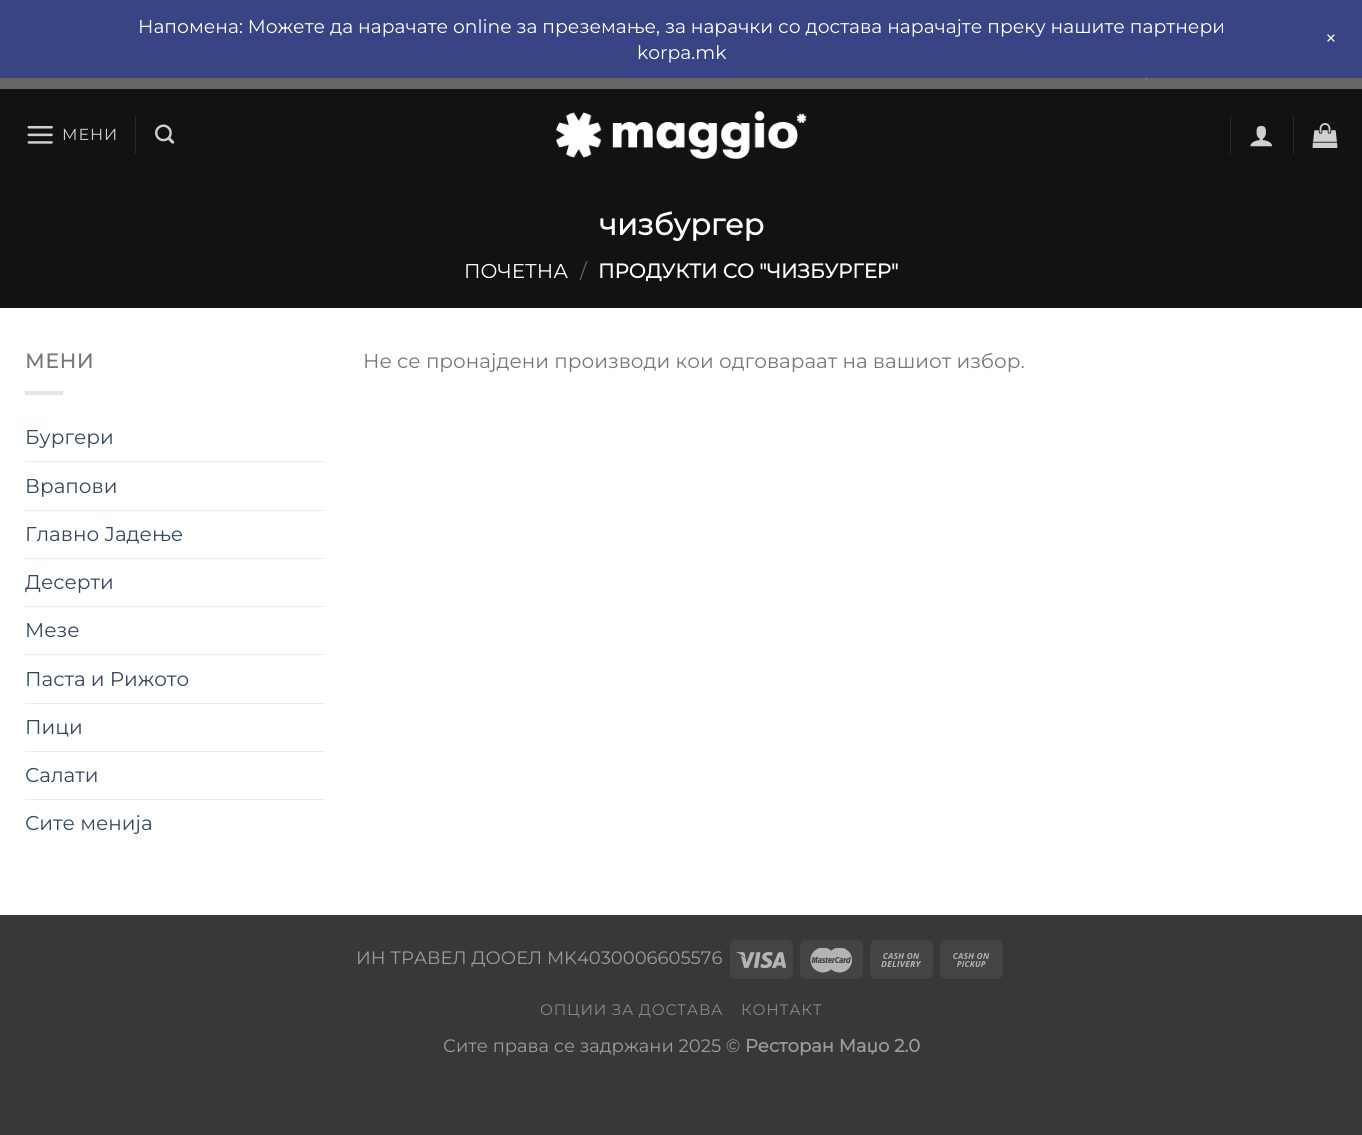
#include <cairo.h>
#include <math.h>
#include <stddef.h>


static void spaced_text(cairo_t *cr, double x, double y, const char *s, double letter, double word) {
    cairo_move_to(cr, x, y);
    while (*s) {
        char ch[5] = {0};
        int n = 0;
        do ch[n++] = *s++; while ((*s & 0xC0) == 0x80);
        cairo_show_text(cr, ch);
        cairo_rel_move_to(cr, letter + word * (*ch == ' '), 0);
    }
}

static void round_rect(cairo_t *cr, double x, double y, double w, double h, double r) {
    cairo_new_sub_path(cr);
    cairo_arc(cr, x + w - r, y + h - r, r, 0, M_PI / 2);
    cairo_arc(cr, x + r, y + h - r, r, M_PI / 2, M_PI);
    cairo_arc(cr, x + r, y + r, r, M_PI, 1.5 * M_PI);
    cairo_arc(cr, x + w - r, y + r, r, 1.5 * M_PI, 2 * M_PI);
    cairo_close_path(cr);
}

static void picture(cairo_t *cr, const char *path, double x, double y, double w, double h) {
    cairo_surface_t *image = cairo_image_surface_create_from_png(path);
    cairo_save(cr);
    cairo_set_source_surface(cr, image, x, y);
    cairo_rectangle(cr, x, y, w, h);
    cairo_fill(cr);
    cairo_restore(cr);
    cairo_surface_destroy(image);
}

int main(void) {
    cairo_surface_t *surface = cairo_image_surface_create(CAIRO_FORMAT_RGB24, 1362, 1135);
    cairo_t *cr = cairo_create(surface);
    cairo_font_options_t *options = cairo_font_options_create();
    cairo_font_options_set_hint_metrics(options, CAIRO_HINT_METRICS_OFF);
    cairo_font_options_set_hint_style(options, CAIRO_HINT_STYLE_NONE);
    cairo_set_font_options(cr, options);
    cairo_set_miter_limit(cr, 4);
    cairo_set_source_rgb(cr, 0.22, 0.22, 0.22);
    cairo_paint(cr);
    cairo_set_source_rgb(cr, 0.224, 0.267, 0.518);
    cairo_rectangle(cr, 0, 0, 1362, 78);
    cairo_fill(cr);
    cairo_select_font_face(cr, "Montserrat Thin", CAIRO_FONT_SLANT_NORMAL, CAIRO_FONT_WEIGHT_NORMAL);
    cairo_set_font_size(cr, 18.75);
    cairo_set_source_rgb(cr, 1, 1, 1);
    cairo_move_to(cr, 138, 33);
    cairo_show_text(cr, "Напомена: Mожете да нарачате online за преземање, за нарачки со достава нарачајте преку нашите партнери");
    cairo_move_to(cr, 637, 59);
    cairo_show_text(cr, "korpa.mk");
    cairo_set_font_size(cr, 22);
    cairo_save(cr);
    cairo_translate(cr, 1321, 39);
    cairo_rotate(cr, 45 * M_PI / 180);
    cairo_move_to(cr, 0, 0);
    cairo_show_text(cr, "+");
    cairo_restore(cr);
    cairo_rectangle(cr, 0, 308, 1362, 607);
    cairo_fill(cr);
    cairo_set_source_rgb(cr, 0.4, 0.4, 0.4);
    cairo_rectangle(cr, 0, 78, 1362, 11);
    cairo_fill(cr);
    cairo_set_source_rgb(cr, 0.522, 0.522, 0.522);
    cairo_rectangle(cr, 1146, 78, 1, 2);
    cairo_fill(cr);
    cairo_set_source_rgb(cr, 0.071, 0.071, 0.071);
    cairo_rectangle(cr, 0, 89, 1362, 219);
    cairo_fill(cr);
    picture(cr, "img1.png", 27, 126, 26, 18);
    cairo_set_font_size(cr, 16);
    cairo_set_source_rgb(cr, 0.816, 0.816, 0.816);
    spaced_text(cr, 62, 140, "МЕНИ", 1, 0);
    cairo_set_source_rgb(cr, 0.165, 0.165, 0.165);
    cairo_rectangle(cr, 135, 116, 1, 38);
    cairo_fill(cr);
    picture(cr, "img2.png", 155, 124, 20, 20);
    picture(cr, "img3.png", 556, 111, 251, 48);
    cairo_rectangle(cr, 1230, 116, 1, 38);
    cairo_fill(cr);
    picture(cr, "img4.png", 1250, 125, 23, 22);
    cairo_rectangle(cr, 1293, 116, 1, 38);
    cairo_fill(cr);
    picture(cr, "img5.png", 1312, 123, 26, 25);
    cairo_select_font_face(cr, "Montserrat", CAIRO_FONT_SLANT_NORMAL, CAIRO_FONT_WEIGHT_BOLD);
    cairo_set_font_size(cr, 30);
    cairo_set_source_rgb(cr, 1, 1, 1);
    cairo_move_to(cr, 599, 235);
    cairo_show_text(cr, "чизбургер");
    cairo_select_font_face(cr, "Montserrat Thin", CAIRO_FONT_SLANT_NORMAL, CAIRO_FONT_WEIGHT_NORMAL);
    cairo_set_font_size(cr, 20);
    cairo_move_to(cr, 464, 278);
    cairo_show_text(cr, "ПОЧЕТНА");
    cairo_set_source_rgb(cr, 0.396, 0.396, 0.396);
    cairo_move_to(cr, 580, 278);
    cairo_show_text(cr, "/");
    cairo_select_font_face(cr, "Montserrat", CAIRO_FONT_SLANT_NORMAL, CAIRO_FONT_WEIGHT_BOLD);
    cairo_set_source_rgb(cr, 1, 1, 1);
    cairo_move_to(cr, 598, 278);
    cairo_show_text(cr, "ПРОДУКТИ СО \"ЧИЗБУРГЕР\"");
    cairo_set_source_rgb(cr, 0.467, 0.467, 0.467);
    spaced_text(cr, 25, 368, "МЕНИ", 1, 0);
    cairo_set_source_rgb(cr, 0.902, 0.902, 0.902);
    cairo_rectangle(cr, 25, 391, 38, 4);
    cairo_fill(cr);
    cairo_select_font_face(cr, "Montserrat Thin", CAIRO_FONT_SLANT_NORMAL, CAIRO_FONT_WEIGHT_NORMAL);
    cairo_set_source_rgb(cr, 0.2, 0.282, 0.384);
    cairo_move_to(cr, 25, 444);
    cairo_show_text(cr, "Бургери");
    cairo_set_source_rgb(cr, 0.925, 0.925, 0.925);
    cairo_rectangle(cr, 25, 461, 300, 1);
    cairo_fill(cr);
    cairo_set_source_rgb(cr, 0.2, 0.282, 0.384);
    cairo_move_to(cr, 25, 493);
    cairo_show_text(cr, "Врапови");
    cairo_set_source_rgb(cr, 0.925, 0.925, 0.925);
    cairo_rectangle(cr, 25, 510, 300, 1);
    cairo_fill(cr);
    cairo_set_source_rgb(cr, 0.2, 0.282, 0.384);
    cairo_move_to(cr, 25, 541);
    cairo_show_text(cr, "Главно Јадење");
    cairo_set_source_rgb(cr, 0.925, 0.925, 0.925);
    cairo_rectangle(cr, 25, 558, 300, 1);
    cairo_fill(cr);
    cairo_set_source_rgb(cr, 0.2, 0.282, 0.384);
    cairo_move_to(cr, 25, 589);
    cairo_show_text(cr, "Десерти");
    cairo_set_source_rgb(cr, 0.925, 0.925, 0.925);
    cairo_rectangle(cr, 25, 606, 300, 1);
    cairo_fill(cr);
    cairo_set_source_rgb(cr, 0.2, 0.282, 0.384);
    cairo_move_to(cr, 25, 637);
    cairo_show_text(cr, "Мезе");
    cairo_set_source_rgb(cr, 0.925, 0.925, 0.925);
    cairo_rectangle(cr, 25, 654, 300, 1);
    cairo_fill(cr);
    cairo_set_source_rgb(cr, 0.2, 0.282, 0.384);
    cairo_move_to(cr, 25, 686);
    cairo_show_text(cr, "Паста и Рижото");
    cairo_set_source_rgb(cr, 0.925, 0.925, 0.925);
    cairo_rectangle(cr, 25, 703, 300, 1);
    cairo_fill(cr);
    cairo_set_source_rgb(cr, 0.2, 0.282, 0.384);
    cairo_move_to(cr, 25, 734);
    cairo_show_text(cr, "Пици");
    cairo_set_source_rgb(cr, 0.925, 0.925, 0.925);
    cairo_rectangle(cr, 25, 751, 300, 1);
    cairo_fill(cr);
    cairo_set_source_rgb(cr, 0.2, 0.282, 0.384);
    cairo_move_to(cr, 25, 782);
    cairo_show_text(cr, "Салати");
    cairo_set_source_rgb(cr, 0.925, 0.925, 0.925);
    cairo_rectangle(cr, 25, 799, 300, 1);
    cairo_fill(cr);
    cairo_set_source_rgb(cr, 0.2, 0.282, 0.384);
    cairo_move_to(cr, 25, 830);
    cairo_show_text(cr, "Сите менија");
    cairo_set_source_rgb(cr, 0.467, 0.467, 0.467);
    cairo_move_to(cr, 363, 368);
    cairo_show_text(cr, "Не се пронајдени производи кои одговараат на вашиот избор.");
    cairo_set_font_size(cr, 18);
    cairo_set_source_rgb(cr, 0.612, 0.612, 0.612);
    cairo_move_to(cr, 356, 964);
    cairo_show_text(cr, "ИН ТРАВЕЛ ДООЕЛ MK4030006605576");
    cairo_set_source_rgb(cr, 0.267, 0.267, 0.267);
    round_rect(cr, 730, 940, 63, 39, 6);
    cairo_fill(cr);
    picture(cr, "img6.png", 736, 951, 50, 18);
    round_rect(cr, 800, 940, 63, 39, 6);
    cairo_fill(cr);
    picture(cr, "img7.png", 810, 948, 42, 25);
    round_rect(cr, 870, 940, 63, 39, 6);
    cairo_fill(cr);
    picture(cr, "img8.png", 881, 953, 41, 14);
    round_rect(cr, 940, 940, 63, 39, 6);
    cairo_fill(cr);
    picture(cr, "img9.png", 953, 953, 37, 14);
    cairo_set_font_size(cr, 15.25);
    cairo_set_source_rgb(cr, 0.533, 0.533, 0.533);
    spaced_text(cr, 540, 1015, "ОПЦИИ ЗА ДОСТАВА", 0.75, 0);
    spaced_text(cr, 741, 1015, "КОНТАКТ", 0.75, 0);
    cairo_set_font_size(cr, 18);
    cairo_set_source_rgb(cr, 0.612, 0.612, 0.612);
    cairo_move_to(cr, 443, 1052);
    cairo_show_text(cr, "Сите права се задржани 2025 ©");
    cairo_select_font_face(cr, "Montserrat", CAIRO_FONT_SLANT_NORMAL, CAIRO_FONT_WEIGHT_BOLD);
    cairo_move_to(cr, 745, 1052);
    cairo_show_text(cr, "Ресторан Маџо 2.0");
    cairo_surface_write_to_png(surface, "page.png");
    cairo_font_options_destroy(options);
    cairo_destroy(cr);
    cairo_surface_destroy(surface);
    return 0;
}
